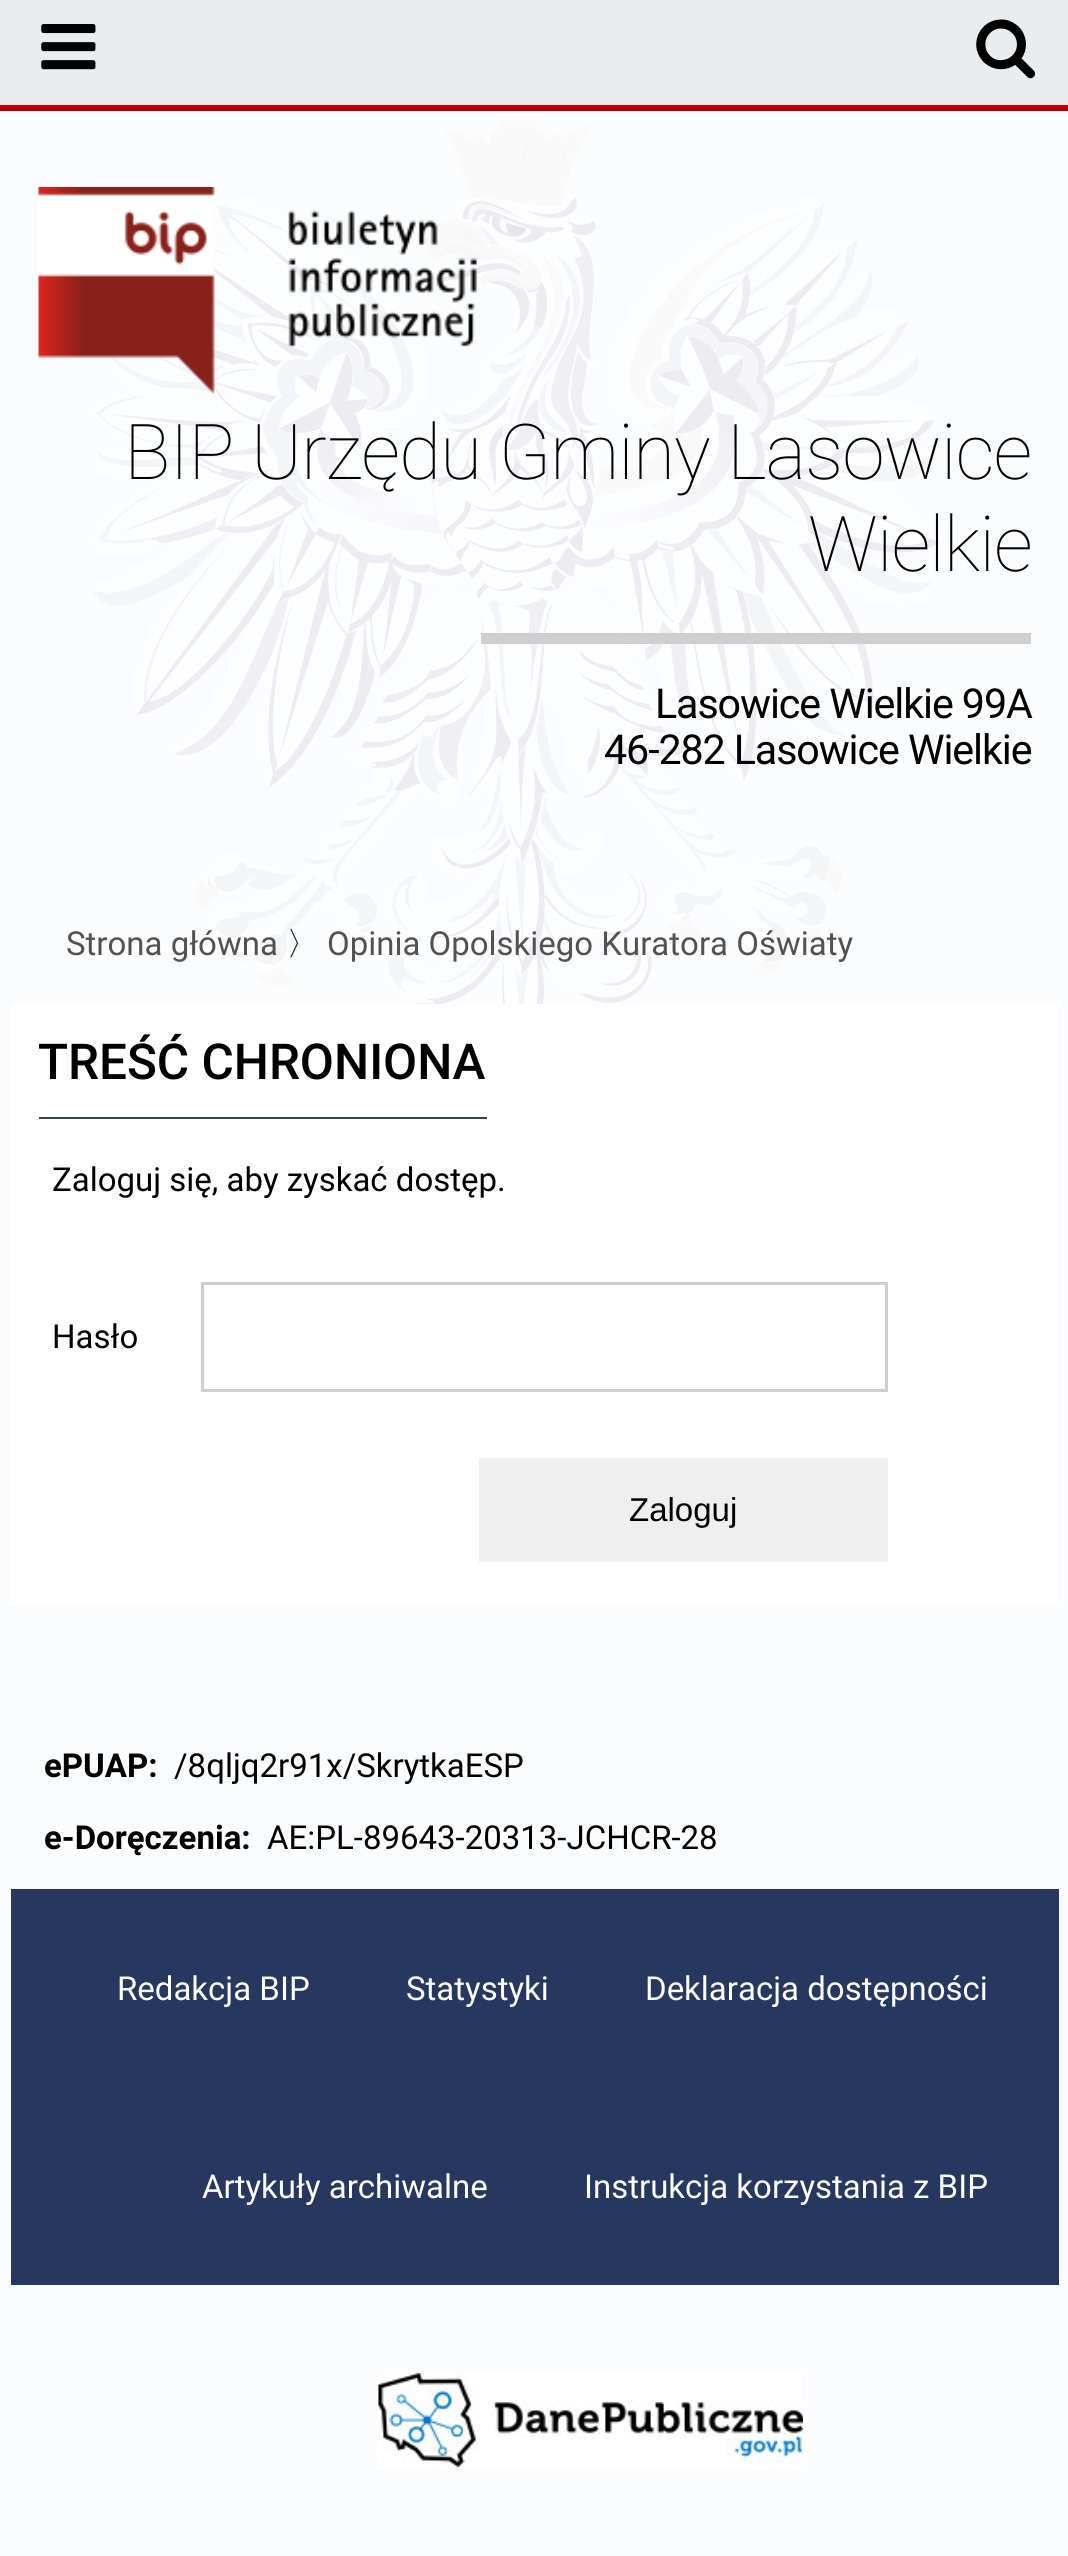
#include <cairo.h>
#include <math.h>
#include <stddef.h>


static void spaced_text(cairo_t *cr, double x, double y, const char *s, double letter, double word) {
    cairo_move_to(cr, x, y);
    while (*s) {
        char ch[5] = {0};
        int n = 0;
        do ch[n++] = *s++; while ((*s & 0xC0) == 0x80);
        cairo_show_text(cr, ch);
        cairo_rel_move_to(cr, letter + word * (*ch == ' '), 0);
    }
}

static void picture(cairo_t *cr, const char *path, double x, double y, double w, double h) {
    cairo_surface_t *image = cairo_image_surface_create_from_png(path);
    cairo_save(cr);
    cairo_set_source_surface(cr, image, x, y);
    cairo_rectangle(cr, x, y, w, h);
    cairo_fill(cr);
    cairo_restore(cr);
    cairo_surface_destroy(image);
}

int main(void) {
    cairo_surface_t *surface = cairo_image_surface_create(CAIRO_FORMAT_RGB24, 1068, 2556);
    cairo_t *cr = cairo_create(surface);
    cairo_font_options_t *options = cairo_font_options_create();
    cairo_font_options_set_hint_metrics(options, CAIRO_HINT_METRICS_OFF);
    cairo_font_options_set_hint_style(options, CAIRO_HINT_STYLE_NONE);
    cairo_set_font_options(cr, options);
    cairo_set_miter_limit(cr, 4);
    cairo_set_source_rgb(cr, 0.984, 0.988, 0.992);
    cairo_paint(cr);
    cairo_set_source_rgb(cr, 0.914, 0.929, 0.937);
    cairo_rectangle(cr, 0, 0, 1068, 105);
    cairo_fill(cr);
    cairo_set_source_rgb(cr, 0.753, 0, 0);
    cairo_rectangle(cr, 0, 105, 1068, 6);
    cairo_fill(cr);
    picture(cr, "img1.png", 41, 24, 55, 46);
    picture(cr, "img2.png", 976, 19, 59, 60);
    picture(cr, "img3.png", 93, 121, 847, 883);
    picture(cr, "img4.png", 38, 187, 440, 207);
    cairo_select_font_face(cr, "Roboto Thin", CAIRO_FONT_SLANT_NORMAL, CAIRO_FONT_WEIGHT_NORMAL);
    cairo_set_font_size(cr, 77);
    cairo_set_source_rgb(cr, 0, 0, 0);
    spaced_text(cr, 124, 479, "BIP Urzędu Gminy Lasowice", -1.1, 0);
    spaced_text(cr, 808, 571, "Wielkie", -1.1, 0);
    cairo_set_source_rgb(cr, 0.812, 0.812, 0.812);
    cairo_rectangle(cr, 481, 633, 550, 11);
    cairo_fill(cr);
    cairo_select_font_face(cr, "Roboto", CAIRO_FONT_SLANT_NORMAL, CAIRO_FONT_WEIGHT_NORMAL);
    cairo_set_font_size(cr, 41.25);
    cairo_set_source_rgb(cr, 0, 0, 0);
    spaced_text(cr, 655, 718, "Lasowice Wielkie 99A", -1.1, 0);
    spaced_text(cr, 604, 764, "46-282 Lasowice Wielkie", -1.1, 0);
    cairo_set_font_size(cr, 33);
    cairo_set_source_rgb(cr, 0.325, 0.322, 0.322);
    cairo_move_to(cr, 66, 955);
    cairo_show_text(cr, "Strona główna");
    cairo_select_font_face(cr, "WenQuanYi Zen Hei Medium", CAIRO_FONT_SLANT_NORMAL, CAIRO_FONT_WEIGHT_NORMAL);
    cairo_set_source_rgb(cr, 0.125, 0.125, 0.125);
    cairo_move_to(cr, 286, 955);
    cairo_show_text(cr, "〉");
    cairo_select_font_face(cr, "Roboto", CAIRO_FONT_SLANT_NORMAL, CAIRO_FONT_WEIGHT_NORMAL);
    cairo_set_source_rgb(cr, 0.325, 0.322, 0.322);
    cairo_move_to(cr, 327, 955);
    cairo_show_text(cr, "Opinia Opolskiego Kuratora Oświaty");
    cairo_set_source_rgb(cr, 1, 1, 1);
    cairo_rectangle(cr, 11, 1004, 1048, 599);
    cairo_fill(cr);
    cairo_set_source_rgb(cr, 0.212, 0.255, 0.314);
    cairo_rectangle(cr, 39, 1117, 448, 2);
    cairo_fill(cr);
    cairo_select_font_face(cr, "Roboto Medium", CAIRO_FONT_SLANT_NORMAL, CAIRO_FONT_WEIGHT_NORMAL);
    cairo_set_font_size(cr, 49.5);
    cairo_set_source_rgb(cr, 0, 0, 0);
    cairo_move_to(cr, 38, 1079);
    cairo_show_text(cr, "TREŚĆ CHRONIONA");
    cairo_select_font_face(cr, "Roboto", CAIRO_FONT_SLANT_NORMAL, CAIRO_FONT_WEIGHT_NORMAL);
    cairo_set_font_size(cr, 33);
    cairo_move_to(cr, 52, 1191);
    cairo_show_text(cr, "Zaloguj się, aby zyskać dostęp.");
    cairo_move_to(cr, 52, 1348);
    cairo_show_text(cr, "Hasło");
    cairo_rectangle(cr, 202.5, 1283.5, 684, 107);
    cairo_set_source_rgb(cr, 0.812, 0.812, 0.812);
    cairo_set_line_width(cr, 3);
    cairo_stroke(cr);
    cairo_set_source_rgb(cr, 0.937, 0.937, 0.937);
    cairo_rectangle(cr, 479, 1458, 409, 104);
    cairo_fill(cr);
    cairo_select_font_face(cr, "Liberation Sans", CAIRO_FONT_SLANT_NORMAL, CAIRO_FONT_WEIGHT_NORMAL);
    cairo_set_source_rgb(cr, 0, 0, 0);
    cairo_move_to(cr, 629, 1521);
    cairo_show_text(cr, "Zaloguj");
    cairo_select_font_face(cr, "Roboto", CAIRO_FONT_SLANT_NORMAL, CAIRO_FONT_WEIGHT_BOLD);
    cairo_move_to(cr, 44, 1777);
    cairo_show_text(cr, "ePUAP:");
    cairo_select_font_face(cr, "Roboto", CAIRO_FONT_SLANT_NORMAL, CAIRO_FONT_WEIGHT_NORMAL);
    cairo_move_to(cr, 174, 1777);
    cairo_show_text(cr, "/8qljq2r91x/SkrytkaESP");
    cairo_select_font_face(cr, "Roboto", CAIRO_FONT_SLANT_NORMAL, CAIRO_FONT_WEIGHT_BOLD);
    cairo_move_to(cr, 44, 1849);
    cairo_show_text(cr, "e-Doręczenia:");
    cairo_select_font_face(cr, "Roboto", CAIRO_FONT_SLANT_NORMAL, CAIRO_FONT_WEIGHT_NORMAL);
    cairo_move_to(cr, 267, 1849);
    cairo_show_text(cr, "AE:PL-89643-20313-JCHCR-28");
    cairo_set_source_rgb(cr, 0.149, 0.22, 0.373);
    cairo_rectangle(cr, 11, 1889, 1048, 396);
    cairo_fill(cr);
    cairo_set_source_rgb(cr, 1, 1, 1);
    cairo_move_to(cr, 117, 2000);
    cairo_show_text(cr, "Redakcja BIP");
    cairo_move_to(cr, 406, 2000);
    cairo_show_text(cr, "Statystyki");
    cairo_move_to(cr, 645, 2000);
    cairo_show_text(cr, "Deklaracja dostępności");
    cairo_move_to(cr, 202, 2198);
    cairo_show_text(cr, "Artykuły archiwalne");
    cairo_move_to(cr, 584, 2198);
    cairo_show_text(cr, "Instrukcja korzystania z BIP");
    picture(cr, "img5.png", 377, 2373, 426, 94);
    cairo_surface_write_to_png(surface, "page.png");
    cairo_font_options_destroy(options);
    cairo_destroy(cr);
    cairo_surface_destroy(surface);
    return 0;
}
